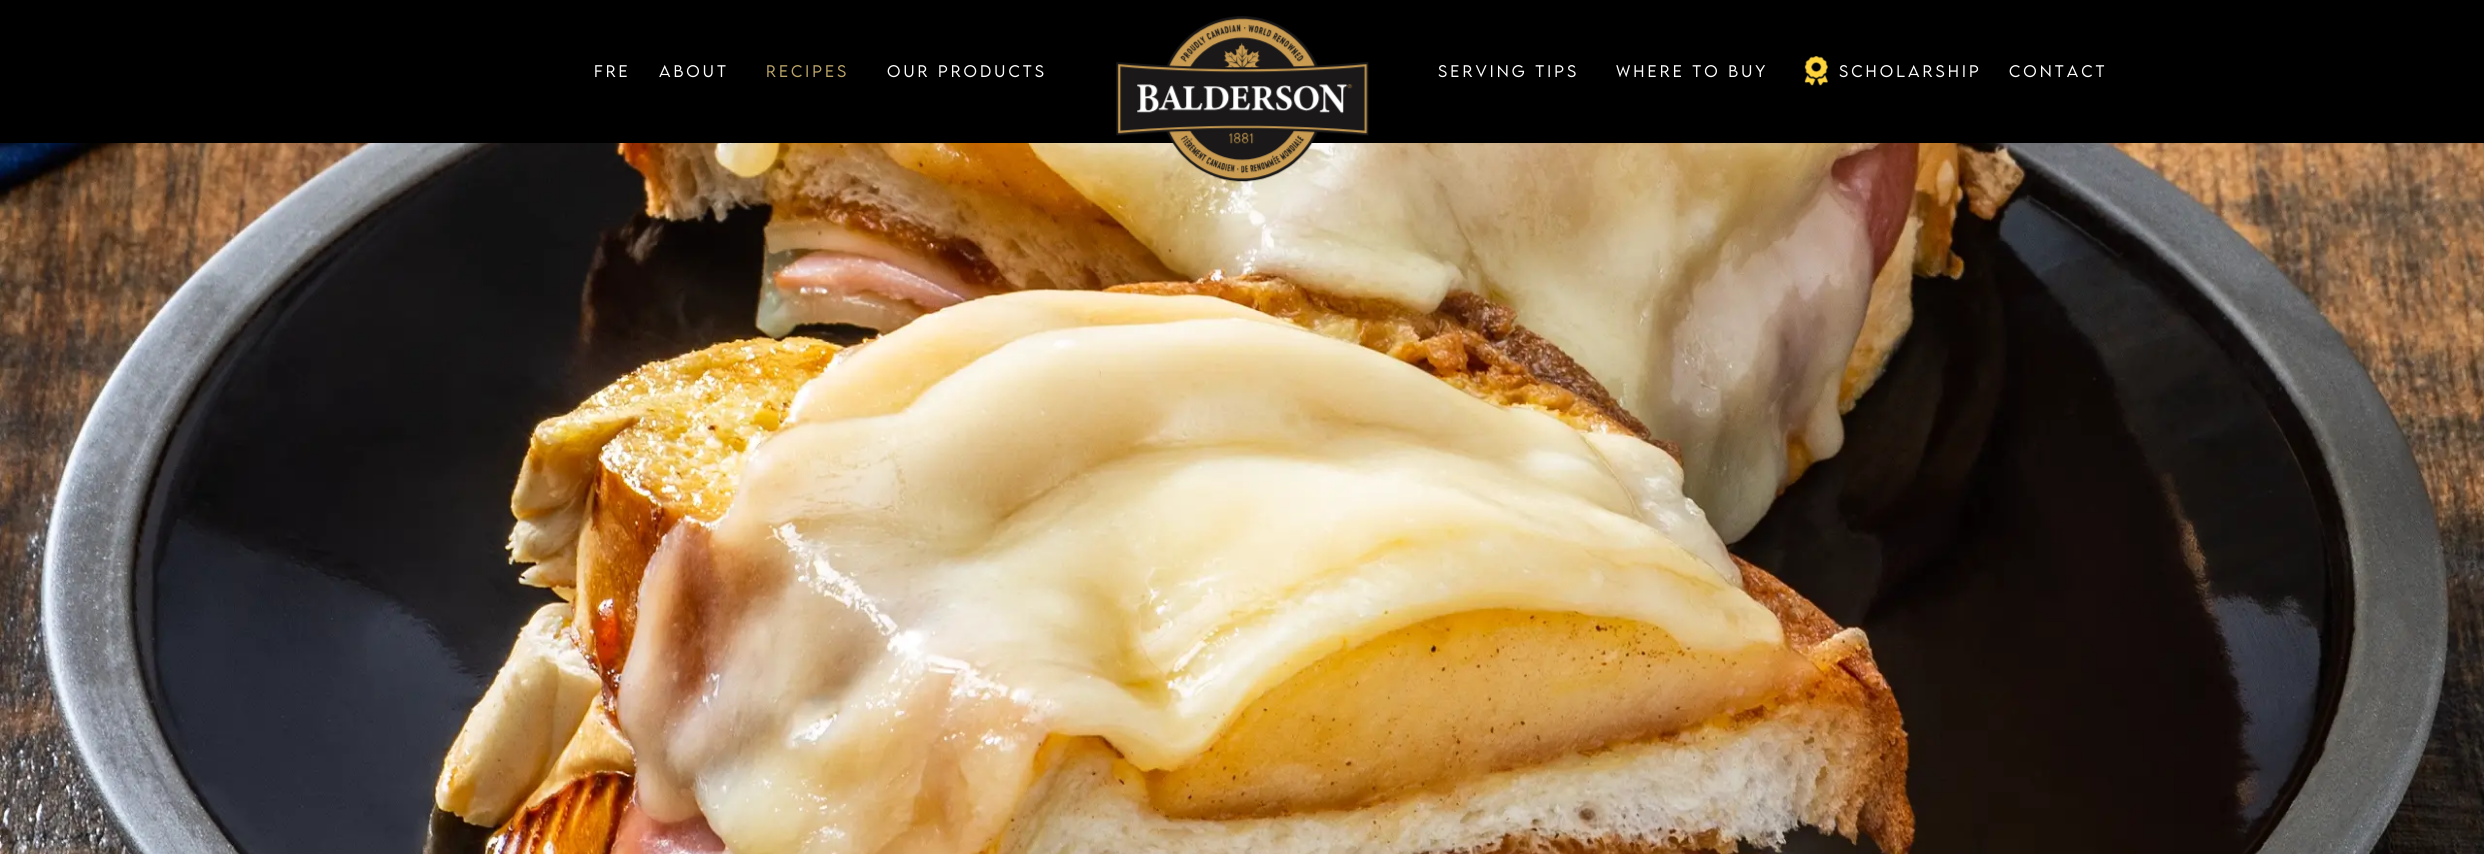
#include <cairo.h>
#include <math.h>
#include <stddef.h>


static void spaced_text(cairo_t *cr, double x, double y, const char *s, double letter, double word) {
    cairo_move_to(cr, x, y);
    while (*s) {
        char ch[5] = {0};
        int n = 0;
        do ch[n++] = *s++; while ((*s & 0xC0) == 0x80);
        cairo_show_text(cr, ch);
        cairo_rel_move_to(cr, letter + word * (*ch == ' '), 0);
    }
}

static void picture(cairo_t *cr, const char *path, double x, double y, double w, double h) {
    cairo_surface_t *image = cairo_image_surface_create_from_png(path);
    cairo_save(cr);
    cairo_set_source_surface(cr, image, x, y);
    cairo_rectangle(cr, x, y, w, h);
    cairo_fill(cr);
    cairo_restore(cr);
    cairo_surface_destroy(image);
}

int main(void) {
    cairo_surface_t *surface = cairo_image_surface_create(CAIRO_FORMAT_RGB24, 2484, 854);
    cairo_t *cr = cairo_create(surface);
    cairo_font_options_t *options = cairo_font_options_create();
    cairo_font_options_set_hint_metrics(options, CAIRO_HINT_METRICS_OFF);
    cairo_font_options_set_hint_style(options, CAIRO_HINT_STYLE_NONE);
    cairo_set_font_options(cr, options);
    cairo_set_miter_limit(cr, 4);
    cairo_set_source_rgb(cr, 1, 1, 1);
    cairo_paint(cr);
    cairo_set_source_rgb(cr, 0, 0, 0);
    cairo_rectangle(cr, 0, 0, 2484, 143);
    cairo_fill(cr);
    cairo_select_font_face(cr, "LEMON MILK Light", CAIRO_FONT_SLANT_NORMAL, CAIRO_FONT_WEIGHT_NORMAL);
    cairo_set_font_size(cr, 15);
    cairo_set_source_rgb(cr, 1, 1, 1);
    spaced_text(cr, 594, 77, "FRE", 3.1, 0);
    spaced_text(cr, 659, 77, "ABOUT", 3.1, 0);
    cairo_set_source_rgb(cr, 0.745, 0.655, 0.412);
    spaced_text(cr, 766, 77, "RECIPES", 3.1, 0);
    cairo_set_source_rgb(cr, 1, 1, 1);
    spaced_text(cr, 887, 77, "OUR PRODUCTS", 3.1, 0);
    picture(cr, "img3.png", 0, 143, 2484, 711);
    picture(cr, "img1.png", 1116, 16, 253, 166);
    spaced_text(cr, 1438, 77, "SERVING TIPS", 3.1, 0);
    spaced_text(cr, 1616, 77, "WHERE TO BUY", 3.1, 0);
    picture(cr, "img2.png", 1804, 56, 24, 30);
    spaced_text(cr, 1839, 77, "SCHOLARSHIP", 3.1, 0);
    spaced_text(cr, 2009, 77, "CONTACT", 3.1, 0);
    cairo_surface_write_to_png(surface, "page.png");
    cairo_font_options_destroy(options);
    cairo_destroy(cr);
    cairo_surface_destroy(surface);
    return 0;
}
